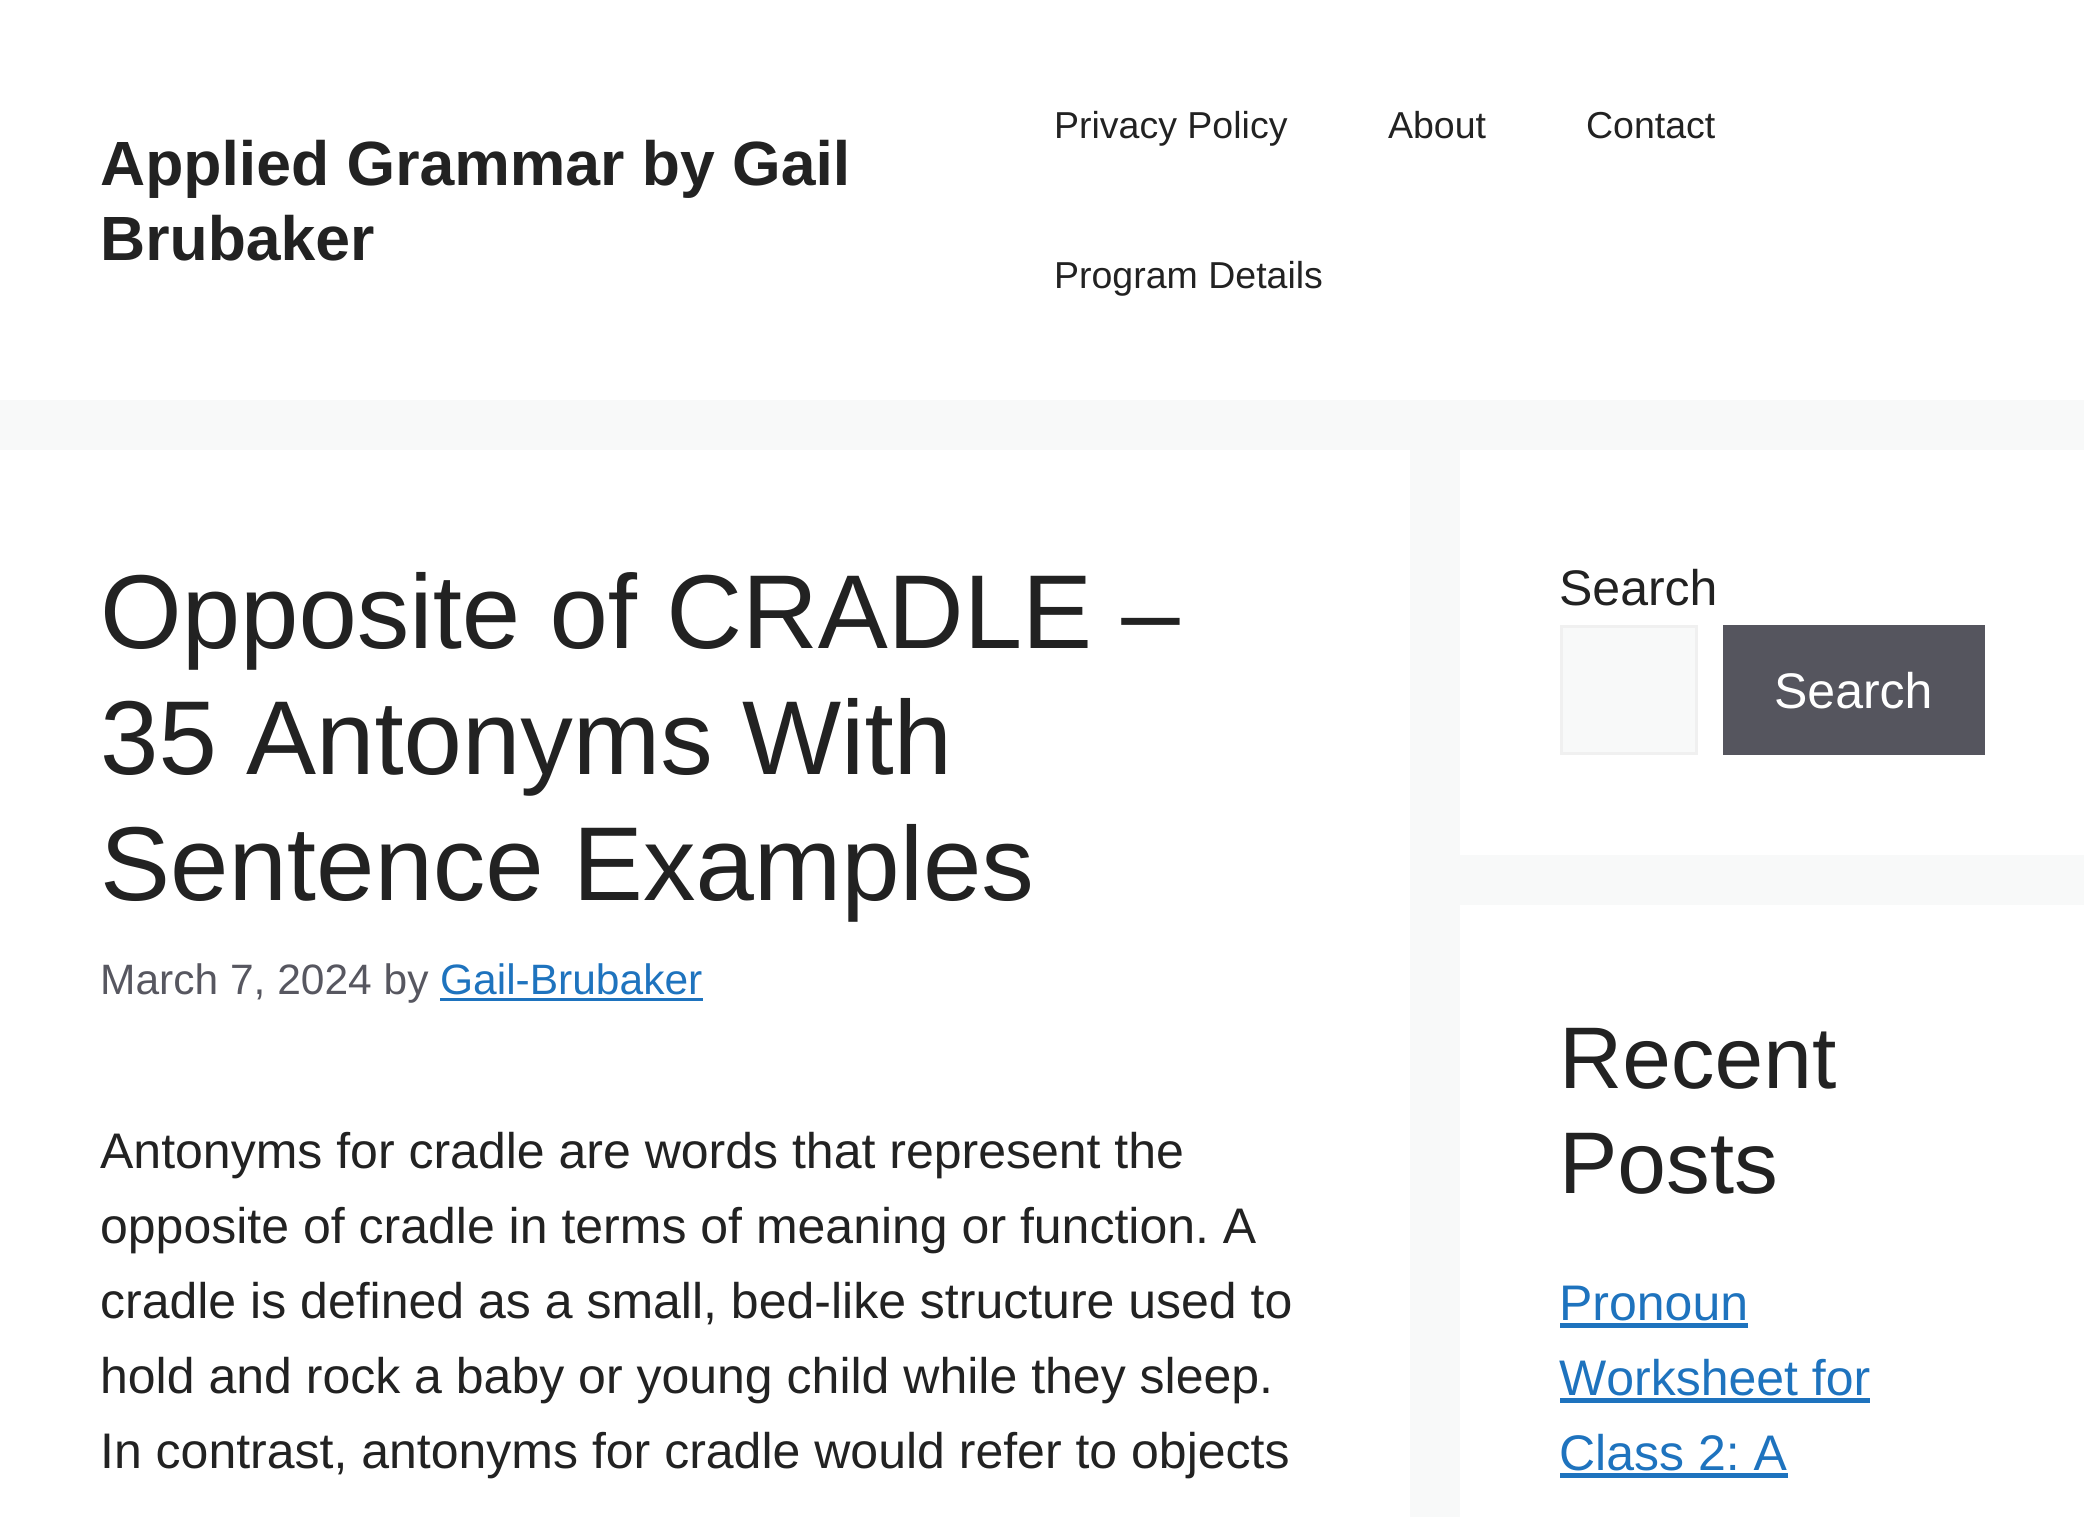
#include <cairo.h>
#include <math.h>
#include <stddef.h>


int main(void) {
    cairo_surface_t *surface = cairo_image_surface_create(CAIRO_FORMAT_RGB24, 2084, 1517);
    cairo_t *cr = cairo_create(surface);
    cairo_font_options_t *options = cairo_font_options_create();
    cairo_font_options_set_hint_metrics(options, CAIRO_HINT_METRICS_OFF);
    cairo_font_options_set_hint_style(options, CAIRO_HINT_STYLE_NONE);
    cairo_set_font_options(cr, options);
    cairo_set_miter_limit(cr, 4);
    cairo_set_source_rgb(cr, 0.969, 0.973, 0.976);
    cairo_paint(cr);
    cairo_set_source_rgb(cr, 1, 1, 1);
    cairo_rectangle(cr, 0, 0, 2084, 400);
    cairo_fill(cr);
    cairo_select_font_face(cr, "Liberation Sans", CAIRO_FONT_SLANT_NORMAL, CAIRO_FONT_WEIGHT_BOLD);
    cairo_set_font_size(cr, 62.5);
    cairo_set_source_rgb(cr, 0.133, 0.133, 0.133);
    cairo_move_to(cr, 100, 185);
    cairo_show_text(cr, "Applied Grammar by Gail");
    cairo_move_to(cr, 100, 260);
    cairo_show_text(cr, "Brubaker");
    cairo_select_font_face(cr, "Liberation Sans", CAIRO_FONT_SLANT_NORMAL, CAIRO_FONT_WEIGHT_NORMAL);
    cairo_set_font_size(cr, 37.5);
    cairo_move_to(cr, 1054, 138);
    cairo_show_text(cr, "Privacy Policy");
    cairo_move_to(cr, 1388, 138);
    cairo_show_text(cr, "About");
    cairo_move_to(cr, 1586, 138);
    cairo_show_text(cr, "Contact");
    cairo_move_to(cr, 1054, 288);
    cairo_show_text(cr, "Program Details");
    cairo_set_source_rgb(cr, 1, 1, 1);
    cairo_rectangle(cr, 0, 450, 1410, 1067);
    cairo_fill(cr);
    cairo_set_font_size(cr, 105);
    cairo_set_source_rgb(cr, 0.133, 0.133, 0.133);
    cairo_move_to(cr, 100, 648);
    cairo_show_text(cr, "Opposite of CRADLE –");
    cairo_move_to(cr, 100, 774);
    cairo_show_text(cr, "35 Antonyms With");
    cairo_move_to(cr, 100, 900);
    cairo_show_text(cr, "Sentence Examples");
    cairo_set_font_size(cr, 42.5);
    cairo_set_source_rgb(cr, 0.341, 0.341, 0.376);
    cairo_move_to(cr, 100, 994);
    cairo_show_text(cr, "March 7, 2024 by");
    cairo_set_source_rgb(cr, 0.118, 0.451, 0.745);
    cairo_move_to(cr, 440, 994);
    cairo_show_text(cr, "Gail-Brubaker");
    cairo_rectangle(cr, 440, 998, 263, 3);
    cairo_fill(cr);
    cairo_set_font_size(cr, 50);
    cairo_set_source_rgb(cr, 0.133, 0.133, 0.133);
    cairo_move_to(cr, 100, 1168);
    cairo_show_text(cr, "Antonyms for cradle are words that represent the");
    cairo_move_to(cr, 100, 1243);
    cairo_show_text(cr, "opposite of cradle in terms of meaning or function. A");
    cairo_move_to(cr, 100, 1318);
    cairo_show_text(cr, "cradle is defined as a small, bed-like structure used to");
    cairo_move_to(cr, 100, 1393);
    cairo_show_text(cr, "hold and rock a baby or young child while they sleep.");
    cairo_move_to(cr, 100, 1468);
    cairo_show_text(cr, "In contrast, antonyms for cradle would refer to objects");
    cairo_set_source_rgb(cr, 1, 1, 1);
    cairo_rectangle(cr, 1460, 450, 624, 405);
    cairo_fill(cr);
    cairo_set_source_rgb(cr, 0.133, 0.133, 0.133);
    cairo_move_to(cr, 1559, 605);
    cairo_show_text(cr, "Search");
    cairo_set_source_rgb(cr, 0.969, 0.973, 0.976);
    cairo_rectangle(cr, 1561.5, 626.5, 135, 127);
    cairo_fill_preserve(cr);
    cairo_set_source_rgb(cr, 0.941, 0.941, 0.941);
    cairo_set_line_width(cr, 3);
    cairo_stroke(cr);
    cairo_set_source_rgb(cr, 0.333, 0.333, 0.369);
    cairo_rectangle(cr, 1723, 625, 262, 130);
    cairo_fill(cr);
    cairo_set_source_rgb(cr, 1, 1, 1);
    cairo_move_to(cr, 1774, 708);
    cairo_show_text(cr, "Search");
    cairo_rectangle(cr, 1460, 905, 624, 612);
    cairo_fill(cr);
    cairo_set_font_size(cr, 87.5);
    cairo_set_source_rgb(cr, 0.133, 0.133, 0.133);
    cairo_move_to(cr, 1559, 1088);
    cairo_show_text(cr, "Recent");
    cairo_move_to(cr, 1559, 1193);
    cairo_show_text(cr, "Posts");
    cairo_set_font_size(cr, 50);
    cairo_set_source_rgb(cr, 0.118, 0.451, 0.745);
    cairo_move_to(cr, 1559, 1320);
    cairo_show_text(cr, "Pronoun");
    cairo_rectangle(cr, 1560, 1323, 188, 5);
    cairo_fill(cr);
    cairo_move_to(cr, 1559, 1395);
    cairo_show_text(cr, "Worksheet for");
    cairo_rectangle(cr, 1560, 1398, 310, 5);
    cairo_fill(cr);
    cairo_move_to(cr, 1559, 1470);
    cairo_show_text(cr, "Class 2: A");
    cairo_rectangle(cr, 1560, 1473, 228, 5);
    cairo_fill(cr);
    cairo_surface_write_to_png(surface, "page.png");
    cairo_font_options_destroy(options);
    cairo_destroy(cr);
    cairo_surface_destroy(surface);
    return 0;
}
